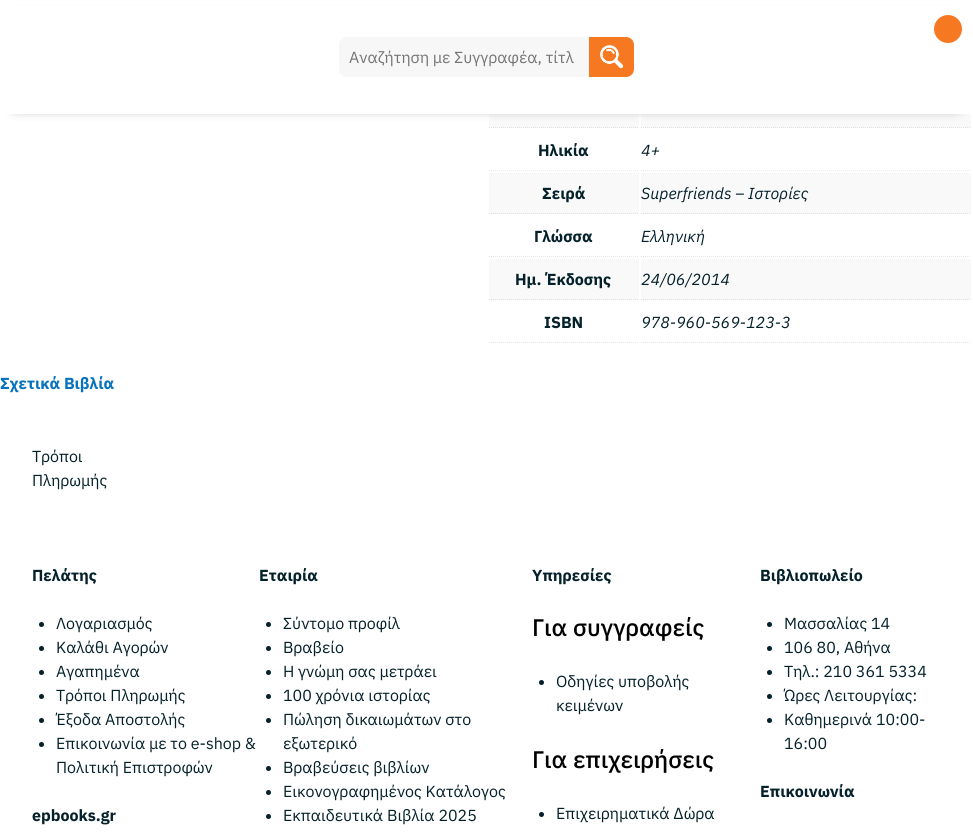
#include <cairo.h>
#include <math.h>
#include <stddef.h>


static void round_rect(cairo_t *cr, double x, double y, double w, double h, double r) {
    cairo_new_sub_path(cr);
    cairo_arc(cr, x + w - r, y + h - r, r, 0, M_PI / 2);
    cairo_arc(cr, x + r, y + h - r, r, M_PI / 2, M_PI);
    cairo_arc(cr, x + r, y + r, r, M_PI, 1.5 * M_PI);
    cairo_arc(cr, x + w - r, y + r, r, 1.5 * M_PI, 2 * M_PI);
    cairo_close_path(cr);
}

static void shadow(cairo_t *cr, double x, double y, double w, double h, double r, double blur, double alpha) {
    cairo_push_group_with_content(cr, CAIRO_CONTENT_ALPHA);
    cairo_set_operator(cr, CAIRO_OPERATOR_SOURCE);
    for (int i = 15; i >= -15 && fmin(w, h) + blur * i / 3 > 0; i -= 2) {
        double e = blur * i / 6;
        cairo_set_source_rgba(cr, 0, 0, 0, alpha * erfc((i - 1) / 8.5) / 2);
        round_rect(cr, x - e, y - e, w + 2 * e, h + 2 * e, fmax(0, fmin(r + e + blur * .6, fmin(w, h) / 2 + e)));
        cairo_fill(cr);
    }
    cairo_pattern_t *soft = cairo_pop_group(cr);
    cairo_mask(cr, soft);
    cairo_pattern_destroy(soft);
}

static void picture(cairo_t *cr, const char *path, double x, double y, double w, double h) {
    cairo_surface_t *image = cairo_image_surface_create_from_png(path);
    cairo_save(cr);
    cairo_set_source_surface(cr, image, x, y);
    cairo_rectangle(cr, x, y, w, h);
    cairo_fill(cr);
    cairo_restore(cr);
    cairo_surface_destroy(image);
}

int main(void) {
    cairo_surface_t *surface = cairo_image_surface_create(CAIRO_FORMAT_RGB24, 973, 833);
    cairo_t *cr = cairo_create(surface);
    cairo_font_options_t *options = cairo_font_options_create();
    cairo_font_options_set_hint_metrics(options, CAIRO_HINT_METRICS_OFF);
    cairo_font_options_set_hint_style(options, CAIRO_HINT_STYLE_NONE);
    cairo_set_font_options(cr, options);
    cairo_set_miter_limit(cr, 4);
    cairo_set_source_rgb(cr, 1, 1, 1);
    cairo_paint(cr);
    cairo_set_source_rgb(cr, 0.976, 0.976, 0.976);
    cairo_rectangle(cr, 489, 114, 150, 14);
    cairo_fill(cr);
    cairo_rectangle(cr, 641, 114, 330, 14);
    cairo_fill(cr);
    cairo_set_source_rgb(cr, 0, 0, 0);
    shadow(cr, 16, 22, 941, 82, 0, 7, 1);
    cairo_set_source_rgb(cr, 1, 1, 1);
    cairo_rectangle(cr, 0, 6, 973, 108);
    cairo_fill(cr);
    cairo_set_source_rgb(cr, 0.961, 0.475, 0.129);
    cairo_arc(cr, 948, 29, 14, 0, 2 * M_PI);
    cairo_fill(cr);
    cairo_set_source_rgb(cr, 0.965, 0.965, 0.965);
    cairo_new_path(cr);
    cairo_move_to(cr, 347, 37);
    cairo_line_to(cr, 590, 37);
    cairo_line_to(cr, 590, 77);
    cairo_line_to(cr, 347, 77);
    cairo_curve_to(cr, 342.5, 77, 339, 73.5, 339, 69);
    cairo_line_to(cr, 339, 45);
    cairo_curve_to(cr, 339, 40.5, 342.5, 37, 347, 37);
    cairo_close_path(cr);
    cairo_fill(cr);
    cairo_select_font_face(cr, "IBM Plex Sans", CAIRO_FONT_SLANT_NORMAL, CAIRO_FONT_WEIGHT_NORMAL);
    cairo_set_font_size(cr, 16);
    cairo_set_source_rgb(cr, 0.459, 0.459, 0.459);
    cairo_move_to(cr, 349, 63);
    cairo_show_text(cr, "Αναζήτηση με Συγγραφέα, τίτλ");
    cairo_set_source_rgb(cr, 0.961, 0.475, 0.129);
    cairo_new_path(cr);
    cairo_move_to(cr, 589, 37);
    cairo_line_to(cr, 626, 37);
    cairo_curve_to(cr, 630.5, 37, 634, 40.5, 634, 45);
    cairo_line_to(cr, 634, 69);
    cairo_curve_to(cr, 634, 73.5, 630.5, 77, 626, 77);
    cairo_line_to(cr, 589, 77);
    cairo_close_path(cr);
    cairo_fill(cr);
    picture(cr, "img1.png", 600, 45, 24, 24);
    cairo_new_path(cr);
    cairo_move_to(cr, 489, 127.5);
    cairo_line_to(cr, 639, 127.5);
    cairo_set_source_rgb(cr, 0.878, 0.878, 0.878);
    cairo_set_line_width(cr, 1);
    cairo_set_dash(cr, (double[]){1, 1}, 2, 0);
    cairo_stroke(cr);
    cairo_new_path(cr);
    cairo_move_to(cr, 641, 127.5);
    cairo_line_to(cr, 971, 127.5);
    cairo_stroke(cr);
    cairo_new_path(cr);
    cairo_move_to(cr, 489, 170.5);
    cairo_line_to(cr, 639, 170.5);
    cairo_set_source_rgb(cr, 0.902, 0.902, 0.902);
    cairo_stroke(cr);
    cairo_select_font_face(cr, "IBM Plex Sans", CAIRO_FONT_SLANT_NORMAL, CAIRO_FONT_WEIGHT_BOLD);
    cairo_set_source_rgb(cr, 0.016, 0.125, 0.165);
    cairo_move_to(cr, 538, 156);
    cairo_show_text(cr, "Ηλικία");
    cairo_new_path(cr);
    cairo_move_to(cr, 641, 170.5);
    cairo_line_to(cr, 971, 170.5);
    cairo_set_source_rgb(cr, 0.902, 0.902, 0.902);
    cairo_stroke(cr);
    cairo_select_font_face(cr, "IBM Plex Sans", CAIRO_FONT_SLANT_ITALIC, CAIRO_FONT_WEIGHT_NORMAL);
    cairo_set_source_rgb(cr, 0.016, 0.125, 0.165);
    cairo_move_to(cr, 641, 156);
    cairo_show_text(cr, "4+");
    cairo_set_source_rgb(cr, 0.976, 0.976, 0.976);
    cairo_rectangle(cr, 489, 173, 150, 41);
    cairo_fill(cr);
    cairo_new_path(cr);
    cairo_move_to(cr, 489, 213.5);
    cairo_line_to(cr, 639, 213.5);
    cairo_set_source_rgb(cr, 0.878, 0.878, 0.878);
    cairo_stroke(cr);
    cairo_select_font_face(cr, "IBM Plex Sans", CAIRO_FONT_SLANT_NORMAL, CAIRO_FONT_WEIGHT_BOLD);
    cairo_set_source_rgb(cr, 0.016, 0.125, 0.165);
    cairo_move_to(cr, 542, 199);
    cairo_show_text(cr, "Σειρά");
    cairo_set_source_rgb(cr, 0.976, 0.976, 0.976);
    cairo_rectangle(cr, 641, 173, 330, 41);
    cairo_fill(cr);
    cairo_new_path(cr);
    cairo_move_to(cr, 641, 213.5);
    cairo_line_to(cr, 971, 213.5);
    cairo_set_source_rgb(cr, 0.878, 0.878, 0.878);
    cairo_stroke(cr);
    cairo_select_font_face(cr, "IBM Plex Sans", CAIRO_FONT_SLANT_ITALIC, CAIRO_FONT_WEIGHT_NORMAL);
    cairo_set_source_rgb(cr, 0.016, 0.125, 0.165);
    cairo_move_to(cr, 641, 199);
    cairo_show_text(cr, "Superfriends – Ιστορίες");
    cairo_new_path(cr);
    cairo_move_to(cr, 489, 256.5);
    cairo_line_to(cr, 639, 256.5);
    cairo_set_source_rgb(cr, 0.902, 0.902, 0.902);
    cairo_stroke(cr);
    cairo_select_font_face(cr, "IBM Plex Sans", CAIRO_FONT_SLANT_NORMAL, CAIRO_FONT_WEIGHT_BOLD);
    cairo_set_source_rgb(cr, 0.016, 0.125, 0.165);
    cairo_move_to(cr, 534, 242);
    cairo_show_text(cr, "Γλώσσα");
    cairo_new_path(cr);
    cairo_move_to(cr, 641, 256.5);
    cairo_line_to(cr, 971, 256.5);
    cairo_set_source_rgb(cr, 0.902, 0.902, 0.902);
    cairo_stroke(cr);
    cairo_select_font_face(cr, "IBM Plex Sans", CAIRO_FONT_SLANT_ITALIC, CAIRO_FONT_WEIGHT_NORMAL);
    cairo_set_source_rgb(cr, 0.016, 0.125, 0.165);
    cairo_move_to(cr, 641, 242);
    cairo_show_text(cr, "Ελληνική");
    cairo_set_source_rgb(cr, 0.976, 0.976, 0.976);
    cairo_rectangle(cr, 489, 259, 150, 41);
    cairo_fill(cr);
    cairo_new_path(cr);
    cairo_move_to(cr, 489, 299.5);
    cairo_line_to(cr, 639, 299.5);
    cairo_set_source_rgb(cr, 0.878, 0.878, 0.878);
    cairo_stroke(cr);
    cairo_select_font_face(cr, "IBM Plex Sans", CAIRO_FONT_SLANT_NORMAL, CAIRO_FONT_WEIGHT_BOLD);
    cairo_set_source_rgb(cr, 0.016, 0.125, 0.165);
    cairo_move_to(cr, 515, 285);
    cairo_show_text(cr, "Ημ. Έκδοσης");
    cairo_set_source_rgb(cr, 0.976, 0.976, 0.976);
    cairo_rectangle(cr, 641, 259, 330, 41);
    cairo_fill(cr);
    cairo_new_path(cr);
    cairo_move_to(cr, 641, 299.5);
    cairo_line_to(cr, 971, 299.5);
    cairo_set_source_rgb(cr, 0.878, 0.878, 0.878);
    cairo_stroke(cr);
    cairo_select_font_face(cr, "IBM Plex Sans", CAIRO_FONT_SLANT_ITALIC, CAIRO_FONT_WEIGHT_NORMAL);
    cairo_set_source_rgb(cr, 0.016, 0.125, 0.165);
    cairo_move_to(cr, 641, 285);
    cairo_show_text(cr, "24/06/2014");
    cairo_new_path(cr);
    cairo_move_to(cr, 489, 342.5);
    cairo_line_to(cr, 639, 342.5);
    cairo_set_source_rgb(cr, 0.902, 0.902, 0.902);
    cairo_stroke(cr);
    cairo_select_font_face(cr, "IBM Plex Sans", CAIRO_FONT_SLANT_NORMAL, CAIRO_FONT_WEIGHT_BOLD);
    cairo_set_source_rgb(cr, 0.016, 0.125, 0.165);
    cairo_move_to(cr, 544, 328);
    cairo_show_text(cr, "ISBN");
    cairo_new_path(cr);
    cairo_move_to(cr, 641, 342.5);
    cairo_line_to(cr, 971, 342.5);
    cairo_set_source_rgb(cr, 0.902, 0.902, 0.902);
    cairo_stroke(cr);
    cairo_select_font_face(cr, "IBM Plex Sans", CAIRO_FONT_SLANT_ITALIC, CAIRO_FONT_WEIGHT_NORMAL);
    cairo_set_source_rgb(cr, 0.016, 0.125, 0.165);
    cairo_move_to(cr, 641, 328);
    cairo_show_text(cr, "978-960-569-123-3");
    cairo_select_font_face(cr, "IBM Plex Sans", CAIRO_FONT_SLANT_NORMAL, CAIRO_FONT_WEIGHT_BOLD);
    cairo_set_source_rgb(cr, 0.027, 0.447, 0.741);
    cairo_move_to(cr, 0, 389);
    cairo_show_text(cr, "Σχετικά Βιβλία");
    cairo_select_font_face(cr, "IBM Plex Sans", CAIRO_FONT_SLANT_NORMAL, CAIRO_FONT_WEIGHT_NORMAL);
    cairo_set_source_rgb(cr, 0.016, 0.125, 0.165);
    cairo_move_to(cr, 32, 462);
    cairo_show_text(cr, "Τρόποι");
    cairo_move_to(cr, 32, 486);
    cairo_show_text(cr, "Πληρωμής");
    cairo_select_font_face(cr, "IBM Plex Sans", CAIRO_FONT_SLANT_NORMAL, CAIRO_FONT_WEIGHT_BOLD);
    cairo_move_to(cr, 32, 581);
    cairo_show_text(cr, "Πελάτης");
    cairo_new_path(cr);
    cairo_arc(cr, 41.5, 624.5, 2.5, 0, 2 * M_PI);
    cairo_fill(cr);
    cairo_select_font_face(cr, "IBM Plex Sans", CAIRO_FONT_SLANT_NORMAL, CAIRO_FONT_WEIGHT_NORMAL);
    cairo_move_to(cr, 56, 629);
    cairo_show_text(cr, "Λογαριασμός");
    cairo_new_path(cr);
    cairo_arc(cr, 41.5, 648.5, 2.5, 0, 2 * M_PI);
    cairo_fill(cr);
    cairo_move_to(cr, 56, 653);
    cairo_show_text(cr, "Καλάθι Αγορών");
    cairo_new_path(cr);
    cairo_arc(cr, 41.5, 672.5, 2.5, 0, 2 * M_PI);
    cairo_fill(cr);
    cairo_move_to(cr, 56, 677);
    cairo_show_text(cr, "Αγαπημένα");
    cairo_new_path(cr);
    cairo_arc(cr, 41.5, 696.5, 2.5, 0, 2 * M_PI);
    cairo_fill(cr);
    cairo_move_to(cr, 56, 701);
    cairo_show_text(cr, "Τρόποι Πληρωμής");
    cairo_new_path(cr);
    cairo_arc(cr, 41.5, 720.5, 2.5, 0, 2 * M_PI);
    cairo_fill(cr);
    cairo_move_to(cr, 56, 725);
    cairo_show_text(cr, "Έξοδα Αποστολής");
    cairo_new_path(cr);
    cairo_arc(cr, 41.5, 744.5, 2.5, 0, 2 * M_PI);
    cairo_fill(cr);
    cairo_move_to(cr, 56, 749);
    cairo_show_text(cr, "Επικοινωνία με το e-shop &");
    cairo_move_to(cr, 56, 773);
    cairo_show_text(cr, "Πολιτική Επιστροφών");
    cairo_select_font_face(cr, "IBM Plex Sans", CAIRO_FONT_SLANT_NORMAL, CAIRO_FONT_WEIGHT_BOLD);
    cairo_move_to(cr, 32, 821);
    cairo_show_text(cr, "epbooks.gr");
    cairo_move_to(cr, 259, 581);
    cairo_show_text(cr, "Εταιρία");
    cairo_new_path(cr);
    cairo_arc(cr, 268.5, 624.5, 2.5, 0, 2 * M_PI);
    cairo_fill(cr);
    cairo_select_font_face(cr, "IBM Plex Sans", CAIRO_FONT_SLANT_NORMAL, CAIRO_FONT_WEIGHT_NORMAL);
    cairo_move_to(cr, 283, 629);
    cairo_show_text(cr, "Σύντομο προφίλ");
    cairo_new_path(cr);
    cairo_arc(cr, 268.5, 648.5, 2.5, 0, 2 * M_PI);
    cairo_fill(cr);
    cairo_move_to(cr, 283, 653);
    cairo_show_text(cr, "Βραβείο");
    cairo_new_path(cr);
    cairo_arc(cr, 268.5, 672.5, 2.5, 0, 2 * M_PI);
    cairo_fill(cr);
    cairo_move_to(cr, 283, 677);
    cairo_show_text(cr, "Η γνώμη σας μετράει");
    cairo_new_path(cr);
    cairo_arc(cr, 268.5, 696.5, 2.5, 0, 2 * M_PI);
    cairo_fill(cr);
    cairo_move_to(cr, 283, 701);
    cairo_show_text(cr, "100 χρόνια ιστορίας");
    cairo_new_path(cr);
    cairo_arc(cr, 268.5, 720.5, 2.5, 0, 2 * M_PI);
    cairo_fill(cr);
    cairo_move_to(cr, 283, 725);
    cairo_show_text(cr, "Πώληση δικαιωμάτων στο");
    cairo_move_to(cr, 283, 749);
    cairo_show_text(cr, "εξωτερικό");
    cairo_new_path(cr);
    cairo_arc(cr, 268.5, 768.5, 2.5, 0, 2 * M_PI);
    cairo_fill(cr);
    cairo_move_to(cr, 283, 773);
    cairo_show_text(cr, "Βραβεύσεις βιβλίων");
    cairo_new_path(cr);
    cairo_arc(cr, 268.5, 792.5, 2.5, 0, 2 * M_PI);
    cairo_fill(cr);
    cairo_move_to(cr, 283, 797);
    cairo_show_text(cr, "Εικονογραφημένος Κατάλογος");
    cairo_new_path(cr);
    cairo_arc(cr, 268.5, 816.5, 2.5, 0, 2 * M_PI);
    cairo_fill(cr);
    cairo_move_to(cr, 283, 821);
    cairo_show_text(cr, "Εκπαιδευτικά Βιβλία 2025");
    cairo_select_font_face(cr, "IBM Plex Sans", CAIRO_FONT_SLANT_NORMAL, CAIRO_FONT_WEIGHT_BOLD);
    cairo_move_to(cr, 532, 581);
    cairo_show_text(cr, "Υπηρεσίες");
    cairo_select_font_face(cr, "IBM Plex Sans Medium", CAIRO_FONT_SLANT_NORMAL, CAIRO_FONT_WEIGHT_NORMAL);
    cairo_set_font_size(cr, 24);
    cairo_set_source_rgb(cr, 0, 0, 0);
    cairo_move_to(cr, 532, 636);
    cairo_show_text(cr, "Για συγγραφείς");
    cairo_set_source_rgb(cr, 0.016, 0.125, 0.165);
    cairo_new_path(cr);
    cairo_arc(cr, 541.5, 682.5, 2.5, 0, 2 * M_PI);
    cairo_fill(cr);
    cairo_select_font_face(cr, "IBM Plex Sans", CAIRO_FONT_SLANT_NORMAL, CAIRO_FONT_WEIGHT_NORMAL);
    cairo_set_font_size(cr, 16);
    cairo_move_to(cr, 556, 687);
    cairo_show_text(cr, "Οδηγίες υποβολής");
    cairo_move_to(cr, 556, 711);
    cairo_show_text(cr, "κειμένων");
    cairo_select_font_face(cr, "IBM Plex Sans Medium", CAIRO_FONT_SLANT_NORMAL, CAIRO_FONT_WEIGHT_NORMAL);
    cairo_set_font_size(cr, 24);
    cairo_set_source_rgb(cr, 0, 0, 0);
    cairo_move_to(cr, 532, 768);
    cairo_show_text(cr, "Για επιχειρήσεις");
    cairo_set_source_rgb(cr, 0.016, 0.125, 0.165);
    cairo_new_path(cr);
    cairo_arc(cr, 541.5, 814.5, 2.5, 0, 2 * M_PI);
    cairo_fill(cr);
    cairo_select_font_face(cr, "IBM Plex Sans", CAIRO_FONT_SLANT_NORMAL, CAIRO_FONT_WEIGHT_NORMAL);
    cairo_set_font_size(cr, 16);
    cairo_move_to(cr, 556, 819);
    cairo_show_text(cr, "Επιχειρηματικά Δώρα");
    cairo_select_font_face(cr, "IBM Plex Sans", CAIRO_FONT_SLANT_NORMAL, CAIRO_FONT_WEIGHT_BOLD);
    cairo_move_to(cr, 760, 581);
    cairo_show_text(cr, "Βιβλιοπωλείο");
    cairo_new_path(cr);
    cairo_arc(cr, 769.5, 624.5, 2.5, 0, 2 * M_PI);
    cairo_fill(cr);
    cairo_select_font_face(cr, "IBM Plex Sans", CAIRO_FONT_SLANT_NORMAL, CAIRO_FONT_WEIGHT_NORMAL);
    cairo_move_to(cr, 784, 629);
    cairo_show_text(cr, "Μασσαλίας 14");
    cairo_new_path(cr);
    cairo_arc(cr, 769.5, 648.5, 2.5, 0, 2 * M_PI);
    cairo_fill(cr);
    cairo_move_to(cr, 784, 653);
    cairo_show_text(cr, "106 80, Αθήνα");
    cairo_new_path(cr);
    cairo_arc(cr, 769.5, 672.5, 2.5, 0, 2 * M_PI);
    cairo_fill(cr);
    cairo_move_to(cr, 784, 677);
    cairo_show_text(cr, "Τηλ.: 210 361 5334");
    cairo_new_path(cr);
    cairo_arc(cr, 769.5, 696.5, 2.5, 0, 2 * M_PI);
    cairo_fill(cr);
    cairo_move_to(cr, 784, 701);
    cairo_show_text(cr, "Ώρες Λειτουργίας:");
    cairo_new_path(cr);
    cairo_arc(cr, 769.5, 720.5, 2.5, 0, 2 * M_PI);
    cairo_fill(cr);
    cairo_move_to(cr, 784, 725);
    cairo_show_text(cr, "Καθημερινά 10:00-");
    cairo_move_to(cr, 784, 749);
    cairo_show_text(cr, "16:00");
    cairo_select_font_face(cr, "IBM Plex Sans", CAIRO_FONT_SLANT_NORMAL, CAIRO_FONT_WEIGHT_BOLD);
    cairo_move_to(cr, 760, 797);
    cairo_show_text(cr, "Επικοινωνία");
    cairo_surface_write_to_png(surface, "page.png");
    cairo_font_options_destroy(options);
    cairo_destroy(cr);
    cairo_surface_destroy(surface);
    return 0;
}
